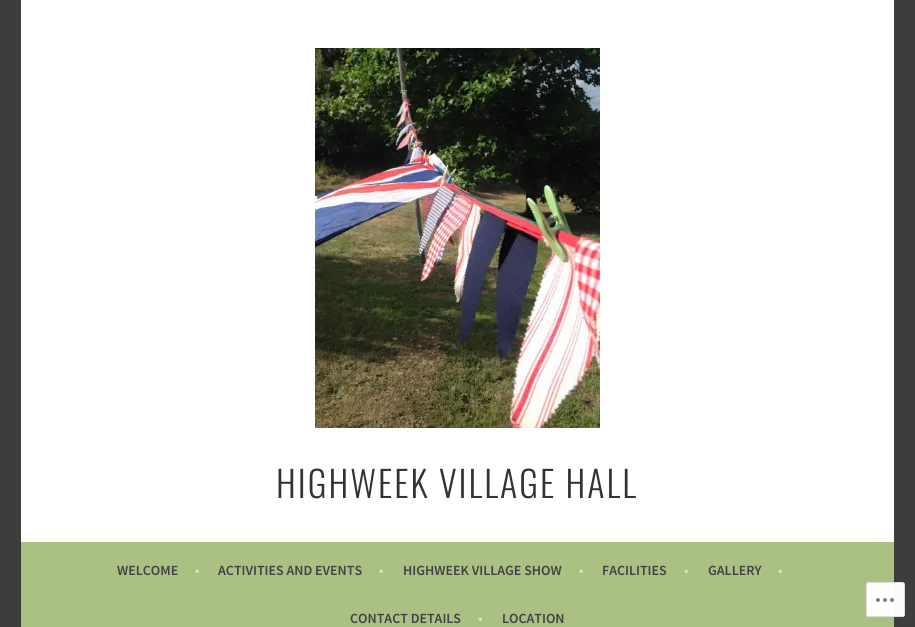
#include <cairo.h>
#include <math.h>
#include <stddef.h>


static void spaced_text(cairo_t *cr, double x, double y, const char *s, double letter, double word) {
    cairo_move_to(cr, x, y);
    while (*s) {
        char ch[5] = {0};
        int n = 0;
        do ch[n++] = *s++; while ((*s & 0xC0) == 0x80);
        cairo_show_text(cr, ch);
        cairo_rel_move_to(cr, letter + word * (*ch == ' '), 0);
    }
}

static void round_rect(cairo_t *cr, double x, double y, double w, double h, double r) {
    cairo_new_sub_path(cr);
    cairo_arc(cr, x + w - r, y + h - r, r, 0, M_PI / 2);
    cairo_arc(cr, x + r, y + h - r, r, M_PI / 2, M_PI);
    cairo_arc(cr, x + r, y + r, r, M_PI, 1.5 * M_PI);
    cairo_arc(cr, x + w - r, y + r, r, 1.5 * M_PI, 2 * M_PI);
    cairo_close_path(cr);
}

static void picture(cairo_t *cr, const char *path, double x, double y, double w, double h) {
    cairo_surface_t *image = cairo_image_surface_create_from_png(path);
    cairo_save(cr);
    cairo_set_source_surface(cr, image, x, y);
    cairo_rectangle(cr, x, y, w, h);
    cairo_fill(cr);
    cairo_restore(cr);
    cairo_surface_destroy(image);
}

int main(void) {
    cairo_surface_t *surface = cairo_image_surface_create(CAIRO_FORMAT_RGB24, 915, 627);
    cairo_t *cr = cairo_create(surface);
    cairo_font_options_t *options = cairo_font_options_create();
    cairo_font_options_set_hint_metrics(options, CAIRO_HINT_METRICS_OFF);
    cairo_font_options_set_hint_style(options, CAIRO_HINT_STYLE_NONE);
    cairo_set_font_options(cr, options);
    cairo_set_miter_limit(cr, 4);
    cairo_set_source_rgb(cr, 0.243, 0.239, 0.231);
    cairo_paint(cr);
    cairo_set_source_rgb(cr, 1, 1, 1);
    cairo_rectangle(cr, 21, 0, 873, 542);
    cairo_fill(cr);
    picture(cr, "img1.png", 315, 48, 285, 380);
    cairo_select_font_face(cr, "Oswald Light", CAIRO_FONT_SLANT_NORMAL, CAIRO_FONT_WEIGHT_NORMAL);
    cairo_set_font_size(cr, 36);
    cairo_set_source_rgb(cr, 0.2, 0.2, 0.2);
    spaced_text(cr, 276, 498, "HIGHWEEK VILLAGE HALL", 2, 0);
    cairo_set_source_rgb(cr, 0.671, 0.757, 0.518);
    cairo_rectangle(cr, 21, 542, 873, 85);
    cairo_fill(cr);
    cairo_select_font_face(cr, "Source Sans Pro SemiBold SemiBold", CAIRO_FONT_SLANT_NORMAL, CAIRO_FONT_WEIGHT_NORMAL);
    cairo_set_font_size(cr, 14);
    cairo_set_source_rgb(cr, 0.259, 0.259, 0.259);
    cairo_move_to(cr, 117, 575);
    cairo_show_text(cr, "WELCOME");
    cairo_set_source_rgb(cr, 0.851, 0.89, 0.784);
    cairo_move_to(cr, 195, 575);
    cairo_show_text(cr, "•");
    cairo_set_source_rgb(cr, 0.259, 0.259, 0.259);
    cairo_move_to(cr, 218, 575);
    cairo_show_text(cr, "ACTIVITIES AND EVENTS");
    cairo_set_source_rgb(cr, 0.851, 0.89, 0.784);
    cairo_move_to(cr, 379, 575);
    cairo_show_text(cr, "•");
    cairo_set_source_rgb(cr, 0.259, 0.259, 0.259);
    cairo_move_to(cr, 403, 575);
    cairo_show_text(cr, "HIGHWEEK VILLAGE SHOW");
    cairo_set_source_rgb(cr, 0.851, 0.89, 0.784);
    cairo_move_to(cr, 579, 575);
    cairo_show_text(cr, "•");
    cairo_set_source_rgb(cr, 0.259, 0.259, 0.259);
    cairo_move_to(cr, 602, 575);
    cairo_show_text(cr, "FACILITIES");
    cairo_set_source_rgb(cr, 0.851, 0.89, 0.784);
    cairo_move_to(cr, 684, 575);
    cairo_show_text(cr, "•");
    cairo_set_source_rgb(cr, 0.259, 0.259, 0.259);
    cairo_move_to(cr, 708, 575);
    cairo_show_text(cr, "GALLERY");
    cairo_set_source_rgb(cr, 0.851, 0.89, 0.784);
    cairo_move_to(cr, 778, 575);
    cairo_show_text(cr, "•");
    cairo_set_source_rgb(cr, 0.259, 0.259, 0.259);
    cairo_move_to(cr, 350, 623);
    cairo_show_text(cr, "CONTACT DETAILS");
    cairo_set_source_rgb(cr, 0.851, 0.89, 0.784);
    cairo_move_to(cr, 478, 623);
    cairo_show_text(cr, "•");
    cairo_set_source_rgb(cr, 0.259, 0.259, 0.259);
    cairo_move_to(cr, 502, 623);
    cairo_show_text(cr, "LOCATION");
    cairo_set_source_rgba(cr, 1, 1, 1, 0.98);
    round_rect(cr, 866, 582, 39, 35, 3);
    cairo_fill(cr);
    round_rect(cr, 866.5, 582.5, 38, 34, 2.5);
    cairo_set_source_rgba(cr, 0.863, 0.863, 0.871, 0.98);
    cairo_set_line_width(cr, 1);
    cairo_stroke(cr);
    picture(cr, "img2.png", 876, 598, 18, 4);
    cairo_surface_write_to_png(surface, "page.png");
    cairo_font_options_destroy(options);
    cairo_destroy(cr);
    cairo_surface_destroy(surface);
    return 0;
}
